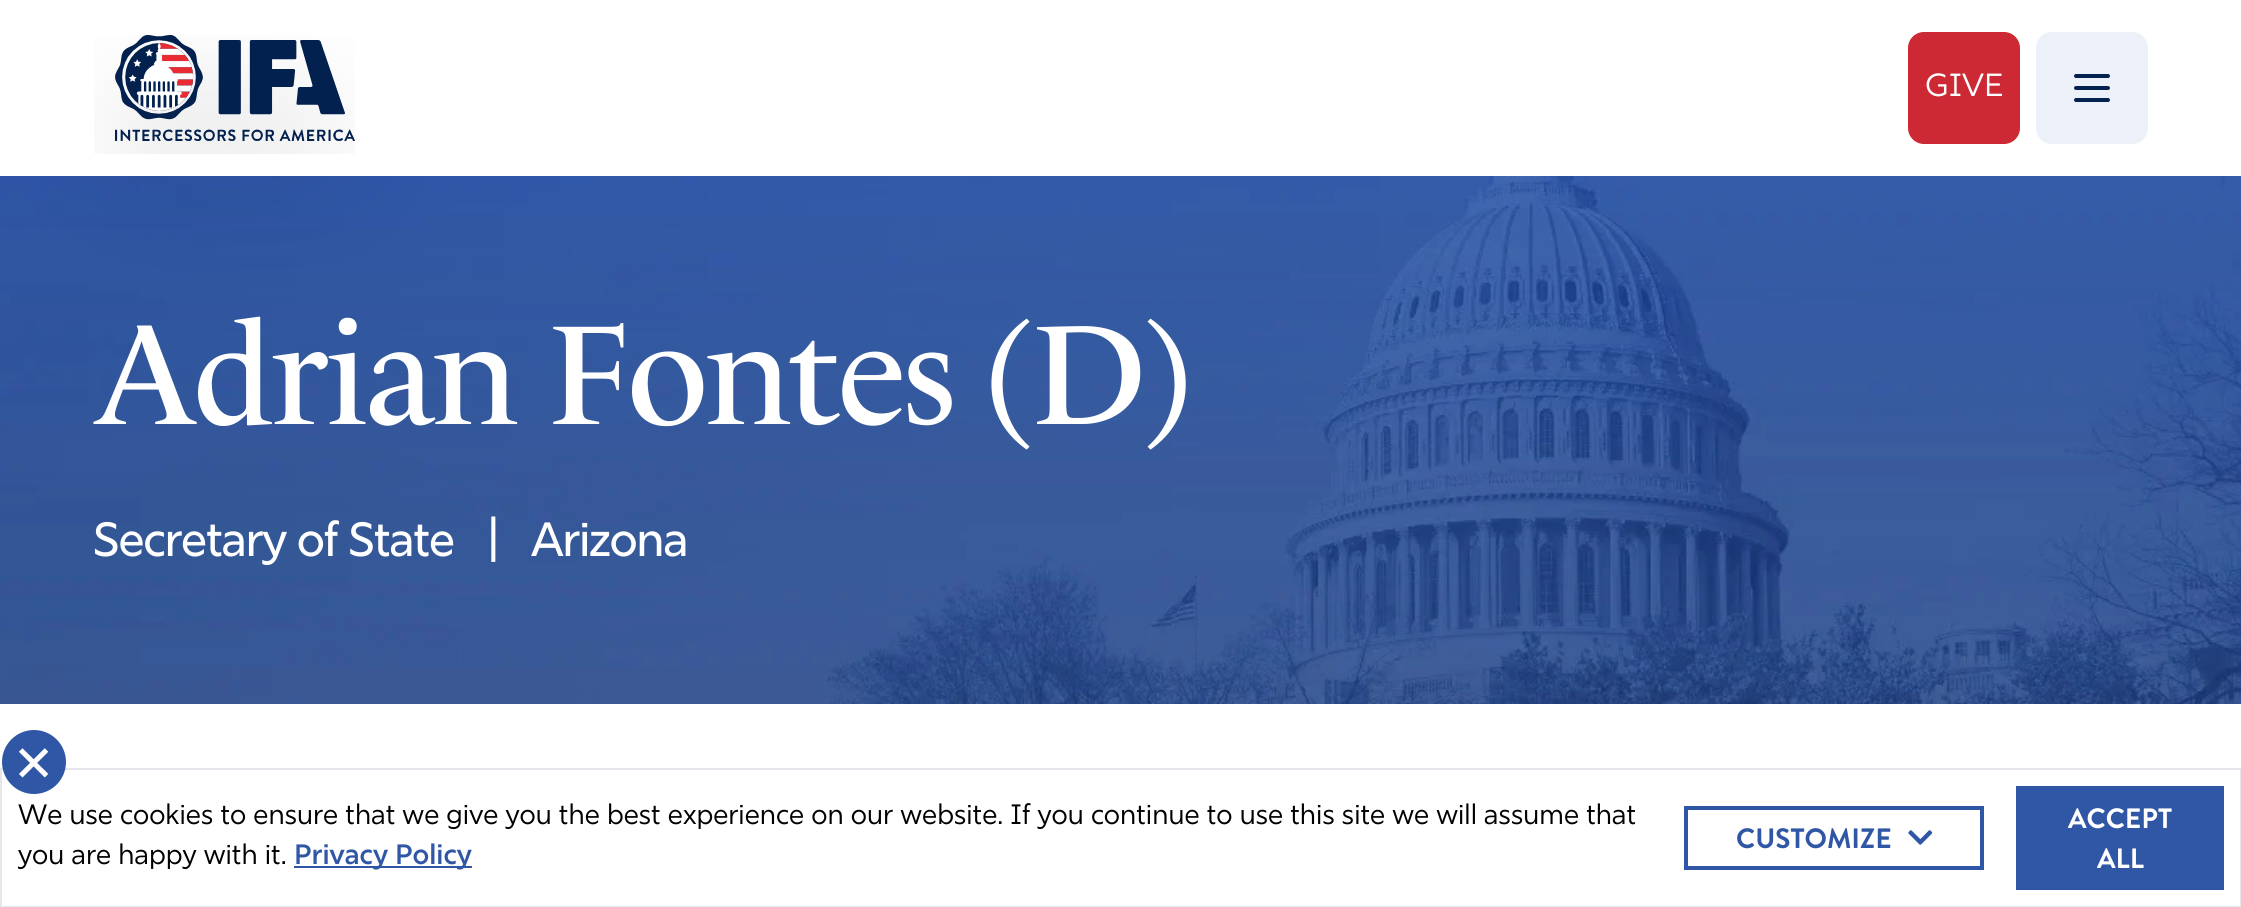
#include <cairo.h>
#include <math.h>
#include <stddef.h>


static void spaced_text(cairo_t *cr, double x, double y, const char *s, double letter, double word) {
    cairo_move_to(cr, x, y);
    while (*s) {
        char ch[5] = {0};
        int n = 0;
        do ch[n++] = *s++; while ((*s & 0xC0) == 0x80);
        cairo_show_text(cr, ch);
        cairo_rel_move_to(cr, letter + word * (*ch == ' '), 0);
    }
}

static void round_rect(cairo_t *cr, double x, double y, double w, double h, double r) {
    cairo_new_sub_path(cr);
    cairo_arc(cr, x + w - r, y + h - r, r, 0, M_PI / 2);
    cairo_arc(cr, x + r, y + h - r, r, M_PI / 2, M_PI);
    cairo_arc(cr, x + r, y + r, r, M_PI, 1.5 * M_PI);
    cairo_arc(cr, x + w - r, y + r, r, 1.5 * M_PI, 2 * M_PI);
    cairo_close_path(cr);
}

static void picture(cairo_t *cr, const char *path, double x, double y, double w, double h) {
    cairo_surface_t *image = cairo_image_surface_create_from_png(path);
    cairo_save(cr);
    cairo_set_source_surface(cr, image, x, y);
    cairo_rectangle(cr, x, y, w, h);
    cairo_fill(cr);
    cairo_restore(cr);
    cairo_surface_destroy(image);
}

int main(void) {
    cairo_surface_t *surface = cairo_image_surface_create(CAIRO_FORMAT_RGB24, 2241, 907);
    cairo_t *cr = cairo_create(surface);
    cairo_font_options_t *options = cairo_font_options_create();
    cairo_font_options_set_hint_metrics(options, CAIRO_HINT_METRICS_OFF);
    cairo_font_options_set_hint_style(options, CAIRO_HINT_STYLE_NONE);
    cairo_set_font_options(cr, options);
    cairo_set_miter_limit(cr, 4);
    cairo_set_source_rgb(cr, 1, 1, 1);
    cairo_paint(cr);
    picture(cr, "img1.png", 94, 35, 261, 119);
    cairo_set_source_rgb(cr, 0.8, 0.161, 0.204);
    round_rect(cr, 1908, 32, 112, 112, 16);
    cairo_fill(cr);
    cairo_select_font_face(cr, "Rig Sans", CAIRO_FONT_SLANT_NORMAL, CAIRO_FONT_WEIGHT_NORMAL);
    cairo_set_font_size(cr, 32);
    cairo_set_source_rgb(cr, 1, 1, 1);
    cairo_move_to(cr, 1925, 96);
    cairo_show_text(cr, "GIVE");
    cairo_set_source_rgb(cr, 0.922, 0.941, 0.973);
    round_rect(cr, 2036, 32, 112, 112, 16);
    cairo_fill(cr);
    picture(cr, "img2.png", 2074, 74, 36, 28);
    picture(cr, "img3.png", 0, 176, 2241, 528);
    cairo_select_font_face(cr, "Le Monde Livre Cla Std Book", CAIRO_FONT_SLANT_NORMAL, CAIRO_FONT_WEIGHT_NORMAL);
    cairo_set_font_size(cr, 144);
    cairo_set_source_rgb(cr, 1, 1, 1);
    spaced_text(cr, 93, 424, "Adrian Fontes (D)", -3.6, 0);
    cairo_select_font_face(cr, "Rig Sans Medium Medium", CAIRO_FONT_SLANT_NORMAL, CAIRO_FONT_WEIGHT_NORMAL);
    cairo_set_font_size(cr, 48);
    spaced_text(cr, 93, 556, "Secretary of State", -1.25, 0);
    spaced_text(cr, 487, 556, "|", -1.25, 0);
    spaced_text(cr, 531, 556, "Arizona", -1.25, 0);
    cairo_rectangle(cr, 1, 769, 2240, 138);
    cairo_set_source_rgb(cr, 0.898, 0.906, 0.922);
    cairo_stroke(cr);
    cairo_set_source_rgb(cr, 0.188, 0.341, 0.647);
    cairo_arc(cr, 34, 762, 32, 0, 2 * M_PI);
    cairo_fill(cr);
    cairo_select_font_face(cr, "Rig Sans", CAIRO_FONT_SLANT_NORMAL, CAIRO_FONT_WEIGHT_NORMAL);
    cairo_set_font_size(cr, 72);
    cairo_set_source_rgb(cr, 1, 1, 1);
    cairo_move_to(cr, 13, 788);
    cairo_show_text(cr, "×");
    cairo_set_font_size(cr, 28);
    cairo_set_source_rgb(cr, 0, 0, 0);
    cairo_move_to(cr, 18, 824);
    cairo_show_text(cr, "We use cookies to ensure that we give you the best experience on our website. If you continue to use this site we will assume that");
    cairo_move_to(cr, 18, 864);
    cairo_show_text(cr, "you are happy with it.");
    cairo_set_source_rgb(cr, 0.188, 0.341, 0.647);
    cairo_rectangle(cr, 294, 866, 178, 2);
    cairo_fill(cr);
    cairo_select_font_face(cr, "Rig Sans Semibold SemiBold", CAIRO_FONT_SLANT_NORMAL, CAIRO_FONT_WEIGHT_NORMAL);
    cairo_move_to(cr, 294, 864);
    cairo_show_text(cr, "Privacy Policy");
    cairo_rectangle(cr, 1686, 808, 296, 60);
    cairo_set_line_width(cr, 4);
    cairo_stroke(cr);
    cairo_select_font_face(cr, "Brandon Grotesque", CAIRO_FONT_SLANT_NORMAL, CAIRO_FONT_WEIGHT_BOLD);
    cairo_move_to(cr, 1736, 848);
    cairo_show_text(cr, "CUSTOMIZE");
    picture(cr, "img4.png", 1908, 830, 25, 15);
    cairo_rectangle(cr, 2016, 786, 208, 104);
    cairo_fill(cr);
    cairo_set_source_rgb(cr, 1, 1, 1);
    cairo_move_to(cr, 2068, 828);
    cairo_show_text(cr, "ACCEPT");
    cairo_move_to(cr, 2097, 868);
    cairo_show_text(cr, "ALL");
    cairo_surface_write_to_png(surface, "page.png");
    cairo_font_options_destroy(options);
    cairo_destroy(cr);
    cairo_surface_destroy(surface);
    return 0;
}
